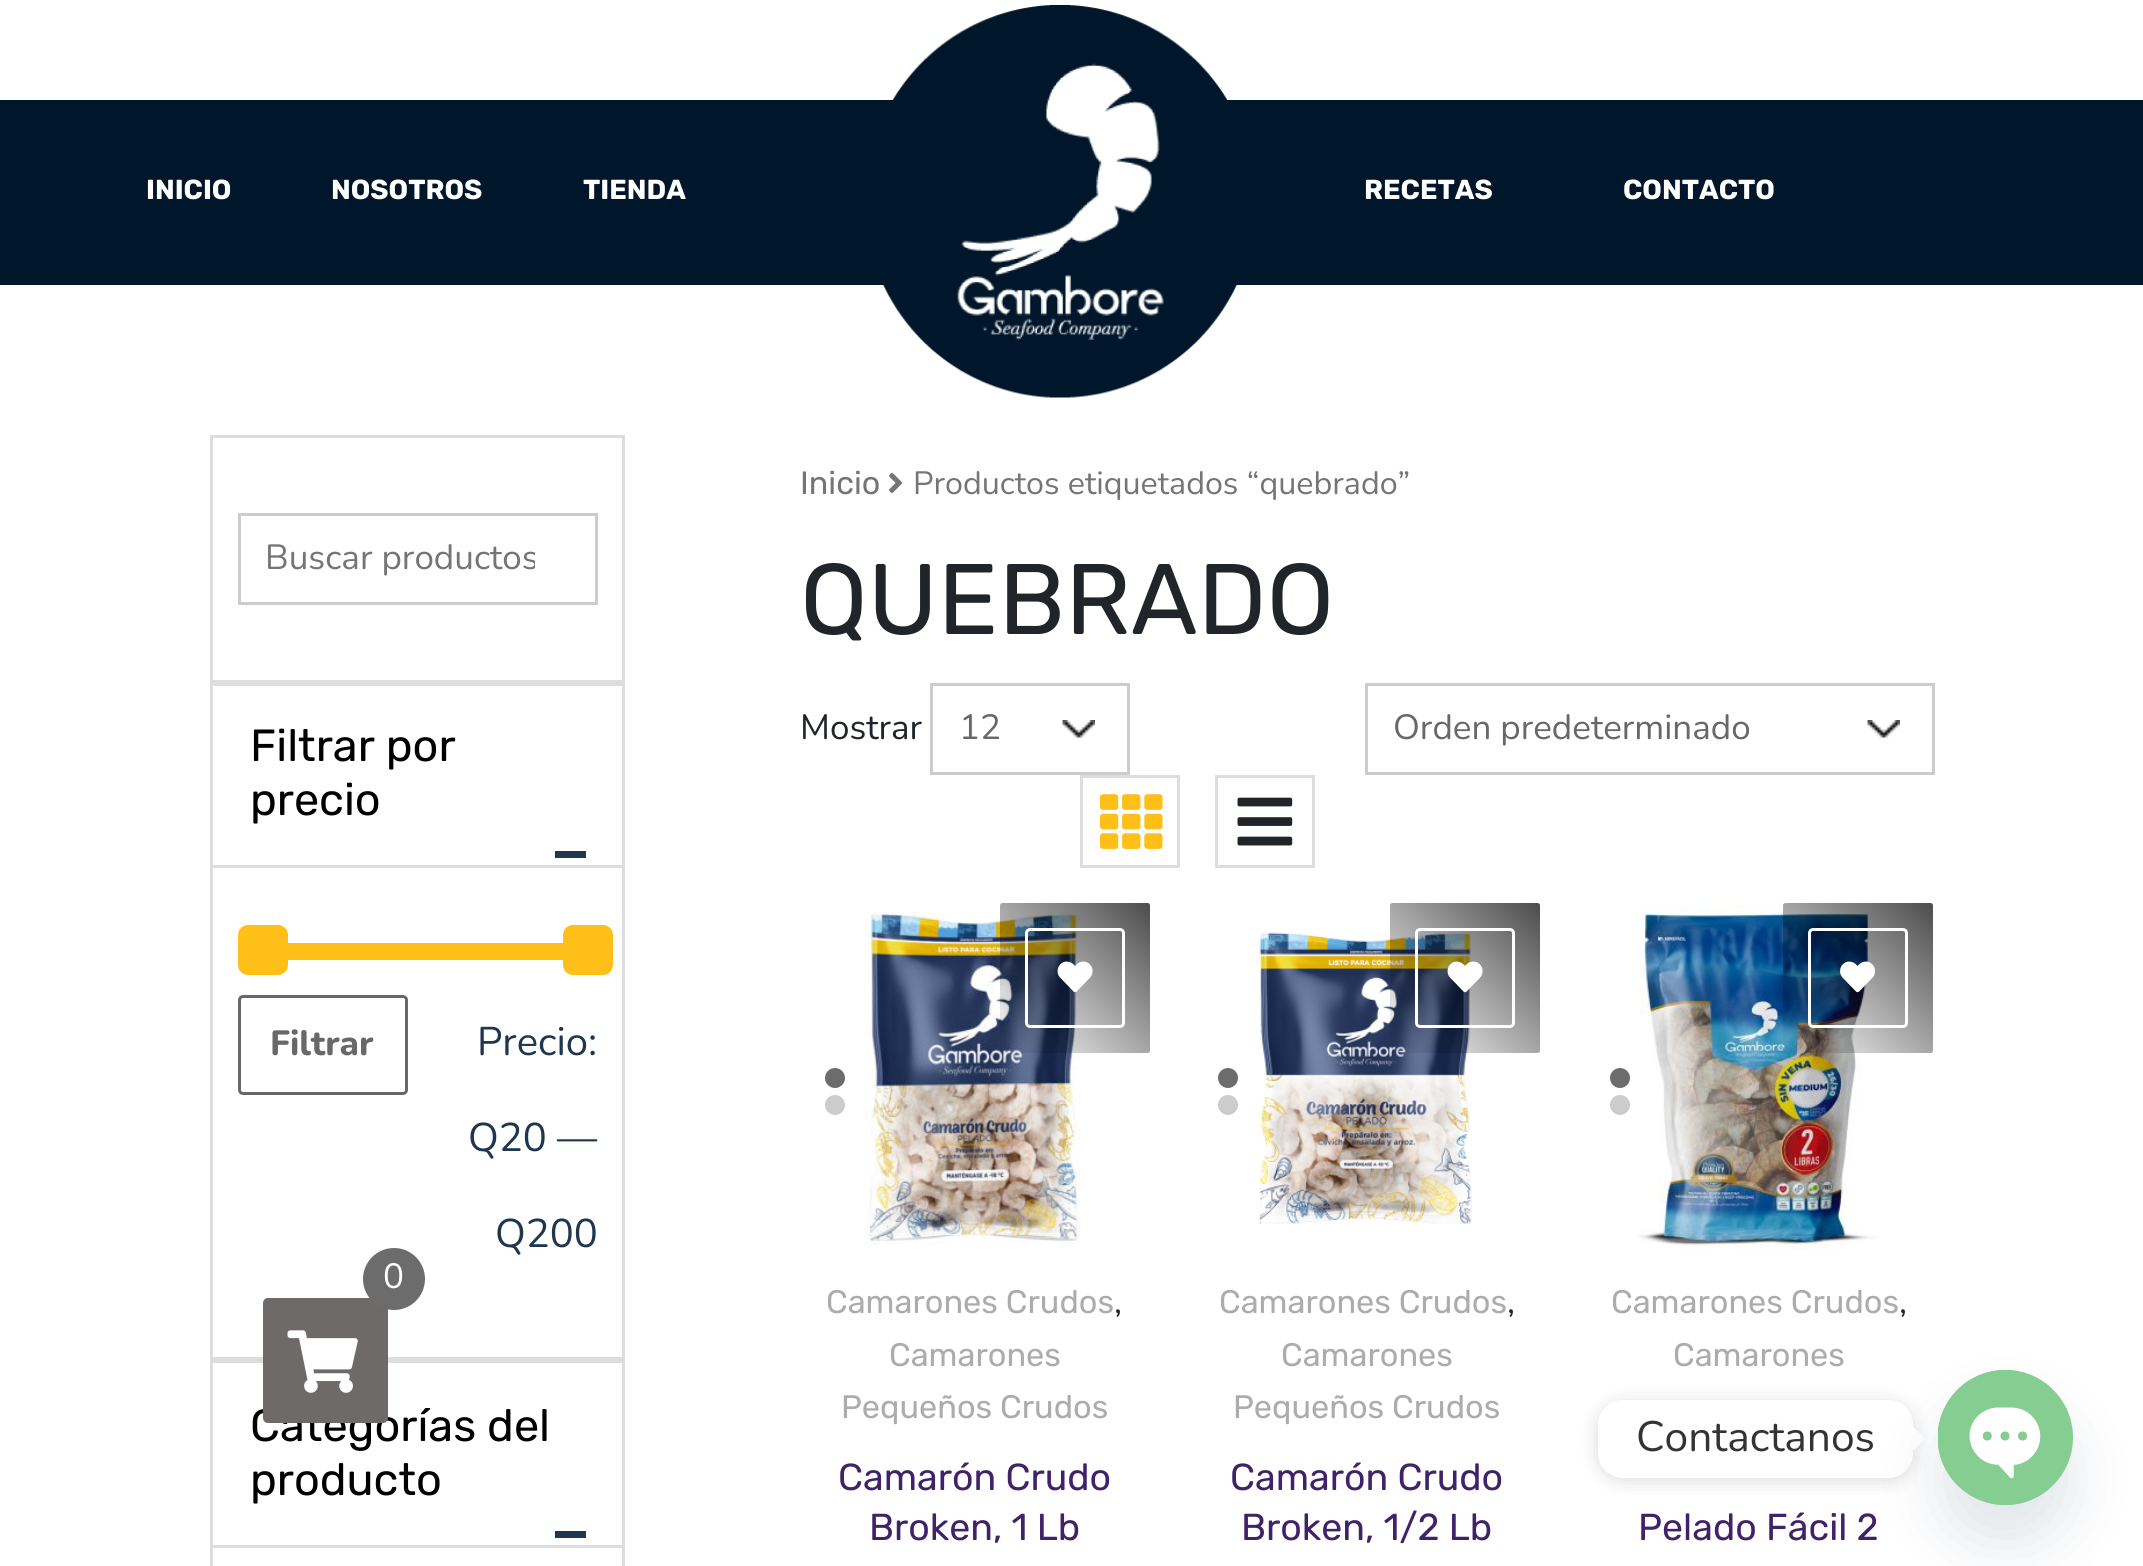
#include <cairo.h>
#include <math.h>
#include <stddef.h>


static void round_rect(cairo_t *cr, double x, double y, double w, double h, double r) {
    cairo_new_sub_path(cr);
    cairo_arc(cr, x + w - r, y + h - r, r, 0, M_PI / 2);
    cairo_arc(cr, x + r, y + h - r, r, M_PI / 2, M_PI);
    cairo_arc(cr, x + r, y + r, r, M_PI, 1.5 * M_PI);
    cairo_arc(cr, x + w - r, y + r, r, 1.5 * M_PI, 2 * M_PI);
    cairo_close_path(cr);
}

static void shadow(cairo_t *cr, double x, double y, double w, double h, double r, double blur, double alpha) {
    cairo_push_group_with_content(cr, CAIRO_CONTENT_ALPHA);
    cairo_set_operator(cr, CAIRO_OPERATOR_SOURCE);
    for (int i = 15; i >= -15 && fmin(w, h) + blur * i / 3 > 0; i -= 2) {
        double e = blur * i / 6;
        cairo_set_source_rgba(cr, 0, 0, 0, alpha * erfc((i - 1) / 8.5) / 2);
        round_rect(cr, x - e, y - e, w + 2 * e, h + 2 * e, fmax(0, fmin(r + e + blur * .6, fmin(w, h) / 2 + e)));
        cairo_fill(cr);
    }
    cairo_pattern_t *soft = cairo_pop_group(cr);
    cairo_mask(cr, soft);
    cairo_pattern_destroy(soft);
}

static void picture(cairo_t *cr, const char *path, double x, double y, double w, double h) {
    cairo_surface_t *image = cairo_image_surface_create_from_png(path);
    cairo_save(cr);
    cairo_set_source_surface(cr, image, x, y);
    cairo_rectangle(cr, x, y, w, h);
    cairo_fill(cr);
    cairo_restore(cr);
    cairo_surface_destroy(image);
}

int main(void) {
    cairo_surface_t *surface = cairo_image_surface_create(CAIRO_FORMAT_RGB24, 2143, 1566);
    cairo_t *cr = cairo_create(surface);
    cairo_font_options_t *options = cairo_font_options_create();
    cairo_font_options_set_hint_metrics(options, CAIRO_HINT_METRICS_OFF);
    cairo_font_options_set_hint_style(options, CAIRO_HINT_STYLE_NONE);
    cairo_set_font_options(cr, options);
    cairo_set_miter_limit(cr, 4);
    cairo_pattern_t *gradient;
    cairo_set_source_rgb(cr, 1, 1, 1);
    cairo_paint(cr);
    cairo_set_source_rgb(cr, 0, 0.09, 0.169);
    cairo_rectangle(cr, 0, 100, 2143, 185);
    cairo_fill(cr);
    cairo_select_font_face(cr, "Rubik", CAIRO_FONT_SLANT_NORMAL, CAIRO_FONT_WEIGHT_BOLD);
    cairo_set_font_size(cr, 27.5);
    cairo_set_source_rgb(cr, 1, 1, 1);
    cairo_move_to(cr, 146, 199);
    cairo_show_text(cr, "INICIO");
    cairo_move_to(cr, 331, 199);
    cairo_show_text(cr, "NOSOTROS");
    cairo_move_to(cr, 583, 199);
    cairo_show_text(cr, "TIENDA");
    picture(cr, "img1.png", 883, 5, 354, 393);
    cairo_move_to(cr, 1364, 199);
    cairo_show_text(cr, "RECETAS");
    cairo_move_to(cr, 1623, 199);
    cairo_show_text(cr, "CONTACTO");
    cairo_rectangle(cr, 211.5, 436.5, 412, 245);
    cairo_set_source_rgb(cr, 0.867, 0.867, 0.867);
    cairo_set_line_width(cr, 3);
    cairo_stroke(cr);
    cairo_rectangle(cr, 239.5, 514.5, 357, 89);
    cairo_set_source_rgb(cr, 0.8, 0.8, 0.8);
    cairo_stroke(cr);
    cairo_save(cr);
    cairo_rectangle(cr, 265, 535, 270, 48);
    cairo_clip(cr);
    cairo_select_font_face(cr, "Nunito", CAIRO_FONT_SLANT_NORMAL, CAIRO_FONT_WEIGHT_NORMAL);
    cairo_set_font_size(cr, 35);
    cairo_set_source_rgb(cr, 0.459, 0.459, 0.459);
    cairo_move_to(cr, 265, 569);
    cairo_show_text(cr, "Buscar productos");
    cairo_restore(cr);
    cairo_rectangle(cr, 211.5, 684.5, 412, 674);
    cairo_set_source_rgb(cr, 0.867, 0.867, 0.867);
    cairo_stroke(cr);
    cairo_select_font_face(cr, "Rubik", CAIRO_FONT_SLANT_NORMAL, CAIRO_FONT_WEIGHT_NORMAL);
    cairo_set_font_size(cr, 45);
    cairo_set_source_rgb(cr, 0, 0, 0);
    cairo_move_to(cr, 250, 761);
    cairo_show_text(cr, "Filtrar por");
    cairo_move_to(cr, 250, 815);
    cairo_show_text(cr, "precio");
    cairo_set_source_rgb(cr, 0.118, 0.212, 0.306);
    cairo_rectangle(cr, 555, 851, 31, 7);
    cairo_fill(cr);
    cairo_set_source_rgb(cr, 0.867, 0.867, 0.867);
    cairo_rectangle(cr, 213, 865, 410, 3);
    cairo_fill(cr);
    cairo_set_source_rgb(cr, 1, 0.749, 0.098);
    round_rect(cr, 238, 925, 50, 50, 10);
    cairo_fill(cr);
    cairo_rectangle(cr, 288, 943, 275, 17);
    cairo_fill(cr);
    round_rect(cr, 563, 925, 50, 50, 10);
    cairo_fill(cr);
    round_rect(cr, 239.5, 996.5, 167, 97, 3.5);
    cairo_set_source_rgb(cr, 0.408, 0.408, 0.408);
    cairo_stroke(cr);
    cairo_select_font_face(cr, "Nunito ExtraBold", CAIRO_FONT_SLANT_NORMAL, CAIRO_FONT_WEIGHT_NORMAL);
    cairo_set_font_size(cr, 35);
    cairo_move_to(cr, 270, 1055);
    cairo_show_text(cr, "Filtrar");
    cairo_select_font_face(cr, "Nunito", CAIRO_FONT_SLANT_NORMAL, CAIRO_FONT_WEIGHT_NORMAL);
    cairo_set_font_size(cr, 40);
    cairo_set_source_rgb(cr, 0.118, 0.212, 0.306);
    cairo_move_to(cr, 477, 1055);
    cairo_show_text(cr, "Precio:");
    cairo_move_to(cr, 468, 1151);
    cairo_show_text(cr, "Q20 —");
    cairo_move_to(cr, 495, 1247);
    cairo_show_text(cr, "Q200");
    cairo_rectangle(cr, 211.5, 1361.5, 412, 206);
    cairo_set_source_rgb(cr, 0.867, 0.867, 0.867);
    cairo_stroke(cr);
    cairo_select_font_face(cr, "Rubik", CAIRO_FONT_SLANT_NORMAL, CAIRO_FONT_WEIGHT_NORMAL);
    cairo_set_font_size(cr, 45);
    cairo_set_source_rgb(cr, 0, 0, 0);
    cairo_move_to(cr, 250, 1441);
    cairo_show_text(cr, "Categorías del");
    cairo_move_to(cr, 250, 1495);
    cairo_show_text(cr, "producto");
    cairo_set_source_rgb(cr, 0.118, 0.212, 0.306);
    cairo_rectangle(cr, 555, 1531, 31, 7);
    cairo_fill(cr);
    cairo_set_source_rgb(cr, 0.867, 0.867, 0.867);
    cairo_rectangle(cr, 213, 1545, 410, 3);
    cairo_fill(cr);
    cairo_set_font_size(cr, 32.25);
    cairo_set_source_rgb(cr, 0.459, 0.459, 0.459);
    cairo_move_to(cr, 800, 494);
    cairo_show_text(cr, "Inicio");
    picture(cr, "img2.png", 889, 472, 13, 21);
    cairo_select_font_face(cr, "Nunito", CAIRO_FONT_SLANT_NORMAL, CAIRO_FONT_WEIGHT_NORMAL);
    cairo_move_to(cr, 913, 494);
    cairo_show_text(cr, "Productos etiquetados “quebrado”");
    cairo_select_font_face(cr, "Rubik", CAIRO_FONT_SLANT_NORMAL, CAIRO_FONT_WEIGHT_NORMAL);
    cairo_set_font_size(cr, 100);
    cairo_set_source_rgb(cr, 0.129, 0.145, 0.161);
    cairo_move_to(cr, 800, 634);
    cairo_show_text(cr, "QUEBRADO");
    cairo_select_font_face(cr, "Nunito", CAIRO_FONT_SLANT_NORMAL, CAIRO_FONT_WEIGHT_NORMAL);
    cairo_set_font_size(cr, 35);
    cairo_move_to(cr, 800, 739);
    cairo_show_text(cr, "Mostrar");
    picture(cr, "img3.png", 1062, 720, 33, 18);
    cairo_rectangle(cr, 931.5, 684.5, 197, 89);
    cairo_set_source_rgb(cr, 0.8, 0.8, 0.8);
    cairo_stroke(cr);
    cairo_set_source_rgb(cr, 0.408, 0.408, 0.408);
    cairo_move_to(cr, 959, 739);
    cairo_show_text(cr, "12");
    picture(cr, "img4.png", 1867, 720, 33, 18);
    cairo_rectangle(cr, 1366.5, 684.5, 567, 89);
    cairo_set_source_rgb(cr, 0.8, 0.8, 0.8);
    cairo_stroke(cr);
    cairo_set_source_rgb(cr, 0.408, 0.408, 0.408);
    cairo_move_to(cr, 1393, 739);
    cairo_show_text(cr, "Orden predeterminado");
    cairo_rectangle(cr, 1081.5, 776.5, 97, 90);
    cairo_set_source_rgb(cr, 0.867, 0.867, 0.867);
    cairo_stroke(cr);
    picture(cr, "img5.png", 1100, 794, 63, 55);
    cairo_rectangle(cr, 1216.5, 776.5, 97, 90);
    cairo_stroke(cr);
    picture(cr, "img6.png", 1237, 797, 56, 49);
    picture(cr, "img7.png", 865, 911, 215, 334);
    gradient = cairo_pattern_create_linear(1000, 1053, 1150, 903);
    cairo_pattern_add_color_stop_rgba(gradient, 0, 0, 0, 0, 0);
    cairo_pattern_add_color_stop_rgba(gradient, 1, 0, 0, 0, 0.7);
    cairo_set_source(cr, gradient);
    cairo_pattern_destroy(gradient);
    round_rect(cr, 1000, 903, 150, 150, 2.5);
    cairo_fill(cr);
    cairo_set_source_rgb(cr, 0.424, 0.424, 0.424);
    cairo_arc(cr, 835, 1078, 10, 0, 2 * M_PI);
    cairo_fill(cr);
    cairo_set_source_rgb(cr, 0.8, 0.8, 0.8);
    cairo_arc(cr, 835, 1105, 10, 0, 2 * M_PI);
    cairo_fill(cr);
    round_rect(cr, 1026.5, 929.5, 97, 97, 3.5);
    cairo_set_source_rgb(cr, 1, 1, 1);
    cairo_stroke(cr);
    picture(cr, "img8.png", 1057, 961, 36, 32);
    cairo_select_font_face(cr, "Rubik", CAIRO_FONT_SLANT_NORMAL, CAIRO_FONT_WEIGHT_NORMAL);
    cairo_set_font_size(cr, 32.5);
    cairo_set_source_rgb(cr, 0.675, 0.675, 0.675);
    cairo_move_to(cr, 826, 1313);
    cairo_show_text(cr, "Camarones Crudos");
    cairo_select_font_face(cr, "Nunito", CAIRO_FONT_SLANT_NORMAL, CAIRO_FONT_WEIGHT_NORMAL);
    cairo_set_font_size(cr, 35);
    cairo_set_source_rgb(cr, 0.129, 0.145, 0.161);
    cairo_move_to(cr, 1114, 1313);
    cairo_show_text(cr, ",");
    cairo_select_font_face(cr, "Rubik", CAIRO_FONT_SLANT_NORMAL, CAIRO_FONT_WEIGHT_NORMAL);
    cairo_set_font_size(cr, 32.5);
    cairo_set_source_rgb(cr, 0.675, 0.675, 0.675);
    cairo_move_to(cr, 889, 1366);
    cairo_show_text(cr, "Camarones");
    cairo_move_to(cr, 841, 1418);
    cairo_show_text(cr, "Pequeños Crudos");
    cairo_set_font_size(cr, 37.5);
    cairo_set_source_rgb(cr, 0.251, 0.133, 0.412);
    cairo_move_to(cr, 838, 1490);
    cairo_show_text(cr, "Camarón Crudo");
    cairo_move_to(cr, 869, 1540);
    cairo_show_text(cr, "Broken, 1 Lb");
    picture(cr, "img10.png", 1259, 932, 213, 292);
    gradient = cairo_pattern_create_linear(1390, 1053, 1540, 903);
    cairo_pattern_add_color_stop_rgba(gradient, 0, 0, 0, 0, 0);
    cairo_pattern_add_color_stop_rgba(gradient, 1, 0, 0, 0, 0.7);
    cairo_set_source(cr, gradient);
    cairo_pattern_destroy(gradient);
    round_rect(cr, 1390, 903, 150, 150, 2.5);
    cairo_fill(cr);
    round_rect(cr, 1416.5, 929.5, 97, 97, 3.5);
    cairo_set_source_rgb(cr, 1, 1, 1);
    cairo_stroke(cr);
    picture(cr, "img9.png", 1447, 961, 36, 32);
    cairo_set_source_rgb(cr, 0.424, 0.424, 0.424);
    cairo_arc(cr, 1228, 1078, 10, 0, 2 * M_PI);
    cairo_fill(cr);
    cairo_set_source_rgb(cr, 0.8, 0.8, 0.8);
    cairo_arc(cr, 1228, 1105, 10, 0, 2 * M_PI);
    cairo_fill(cr);
    cairo_set_font_size(cr, 32.5);
    cairo_set_source_rgb(cr, 0.675, 0.675, 0.675);
    cairo_move_to(cr, 1219, 1313);
    cairo_show_text(cr, "Camarones Crudos");
    cairo_select_font_face(cr, "Nunito", CAIRO_FONT_SLANT_NORMAL, CAIRO_FONT_WEIGHT_NORMAL);
    cairo_set_font_size(cr, 35);
    cairo_set_source_rgb(cr, 0.129, 0.145, 0.161);
    cairo_move_to(cr, 1507, 1313);
    cairo_show_text(cr, ",");
    cairo_select_font_face(cr, "Rubik", CAIRO_FONT_SLANT_NORMAL, CAIRO_FONT_WEIGHT_NORMAL);
    cairo_set_font_size(cr, 32.5);
    cairo_set_source_rgb(cr, 0.675, 0.675, 0.675);
    cairo_move_to(cr, 1281, 1366);
    cairo_show_text(cr, "Camarones");
    cairo_move_to(cr, 1233, 1418);
    cairo_show_text(cr, "Pequeños Crudos");
    cairo_set_font_size(cr, 37.5);
    cairo_set_source_rgb(cr, 0.251, 0.133, 0.412);
    cairo_move_to(cr, 1230, 1490);
    cairo_show_text(cr, "Camarón Crudo");
    cairo_move_to(cr, 1241, 1540);
    cairo_show_text(cr, "Broken, 1/2 Lb");
    cairo_set_source_rgb(cr, 0.424, 0.424, 0.424);
    cairo_new_path(cr);
    cairo_arc(cr, 1620, 1078, 10, 0, 2 * M_PI);
    cairo_fill(cr);
    cairo_set_source_rgb(cr, 0.8, 0.8, 0.8);
    cairo_arc(cr, 1620, 1105, 10, 0, 2 * M_PI);
    cairo_fill(cr);
    picture(cr, "img11.png", 1637, 903, 244, 347);
    gradient = cairo_pattern_create_linear(1783, 1053, 1933, 903);
    cairo_pattern_add_color_stop_rgba(gradient, 0, 0, 0, 0, 0);
    cairo_pattern_add_color_stop_rgba(gradient, 1, 0, 0, 0, 0.7);
    cairo_set_source(cr, gradient);
    cairo_pattern_destroy(gradient);
    round_rect(cr, 1783, 903, 150, 150, 2.5);
    cairo_fill(cr);
    round_rect(cr, 1809.5, 929.5, 97, 97, 3.5);
    cairo_set_source_rgb(cr, 1, 1, 1);
    cairo_stroke(cr);
    picture(cr, "img12.png", 1840, 961, 36, 32);
    cairo_set_font_size(cr, 32.5);
    cairo_set_source_rgb(cr, 0.675, 0.675, 0.675);
    cairo_move_to(cr, 1611, 1313);
    cairo_show_text(cr, "Camarones Crudos");
    cairo_select_font_face(cr, "Nunito", CAIRO_FONT_SLANT_NORMAL, CAIRO_FONT_WEIGHT_NORMAL);
    cairo_set_font_size(cr, 35);
    cairo_set_source_rgb(cr, 0.129, 0.145, 0.161);
    cairo_move_to(cr, 1899, 1313);
    cairo_show_text(cr, ",");
    cairo_select_font_face(cr, "Rubik", CAIRO_FONT_SLANT_NORMAL, CAIRO_FONT_WEIGHT_NORMAL);
    cairo_set_font_size(cr, 32.5);
    cairo_set_source_rgb(cr, 0.675, 0.675, 0.675);
    cairo_move_to(cr, 1673, 1366);
    cairo_show_text(cr, "Camarones");
    cairo_set_font_size(cr, 37.5);
    cairo_set_source_rgb(cr, 0.251, 0.133, 0.412);
    cairo_move_to(cr, 1638, 1540);
    cairo_show_text(cr, "Pelado Fácil 2");
    cairo_set_source_rgb(cr, 0.431, 0.416, 0.416);
    round_rect(cr, 263, 1298, 125, 125, 5);
    cairo_fill(cr);
    cairo_set_source_rgb(cr, 0.424, 0.424, 0.424);
    cairo_arc(cr, 394, 1279, 31, 0, 2 * M_PI);
    cairo_fill(cr);
    cairo_select_font_face(cr, "Nunito", CAIRO_FONT_SLANT_NORMAL, CAIRO_FONT_WEIGHT_NORMAL);
    cairo_set_font_size(cr, 35);
    cairo_set_source_rgb(cr, 1, 1, 1);
    cairo_move_to(cr, 383, 1288);
    cairo_show_text(cr, "0");
    picture(cr, "img13.png", 287, 1330, 71, 63);
    cairo_set_source_rgb(cr, 0, 0, 0);
    shadow(cr, 1598, 1403, 315, 77, 25, 9.5, 0.15);
    cairo_set_source_rgb(cr, 1, 1, 1);
    round_rect(cr, 1598, 1400, 315, 78, 25);
    cairo_fill(cr);
    cairo_set_font_size(cr, 42.5);
    cairo_set_source_rgb(cr, 0.2, 0.2, 0.2);
    cairo_move_to(cr, 1636, 1451);
    cairo_show_text(cr, "Contactanos");
    cairo_set_source_rgb(cr, 1, 1, 1);
    cairo_new_path(cr);
    cairo_move_to(cr, 1912.5, 1451);
    cairo_line_to(cr, 1912.5, 1426);
    cairo_line_to(cr, 1925, 1439);
    cairo_close_path(cr);
    cairo_fill(cr);
    cairo_set_source_rgb(cr, 0.286, 0.408, 0.494);
    shadow(cr, 1938, 1410, 135, 135, 67.5, 30, 0.16);
    cairo_set_source_rgb(cr, 0.525, 0.804, 0.569);
    cairo_arc(cr, 2005.5, 1437.5, 67.5, 0, 2 * M_PI);
    cairo_fill(cr);
    picture(cr, "img14.png", 1938, 1370, 111, 135);
    cairo_surface_write_to_png(surface, "page.png");
    cairo_font_options_destroy(options);
    cairo_destroy(cr);
    cairo_surface_destroy(surface);
    return 0;
}
